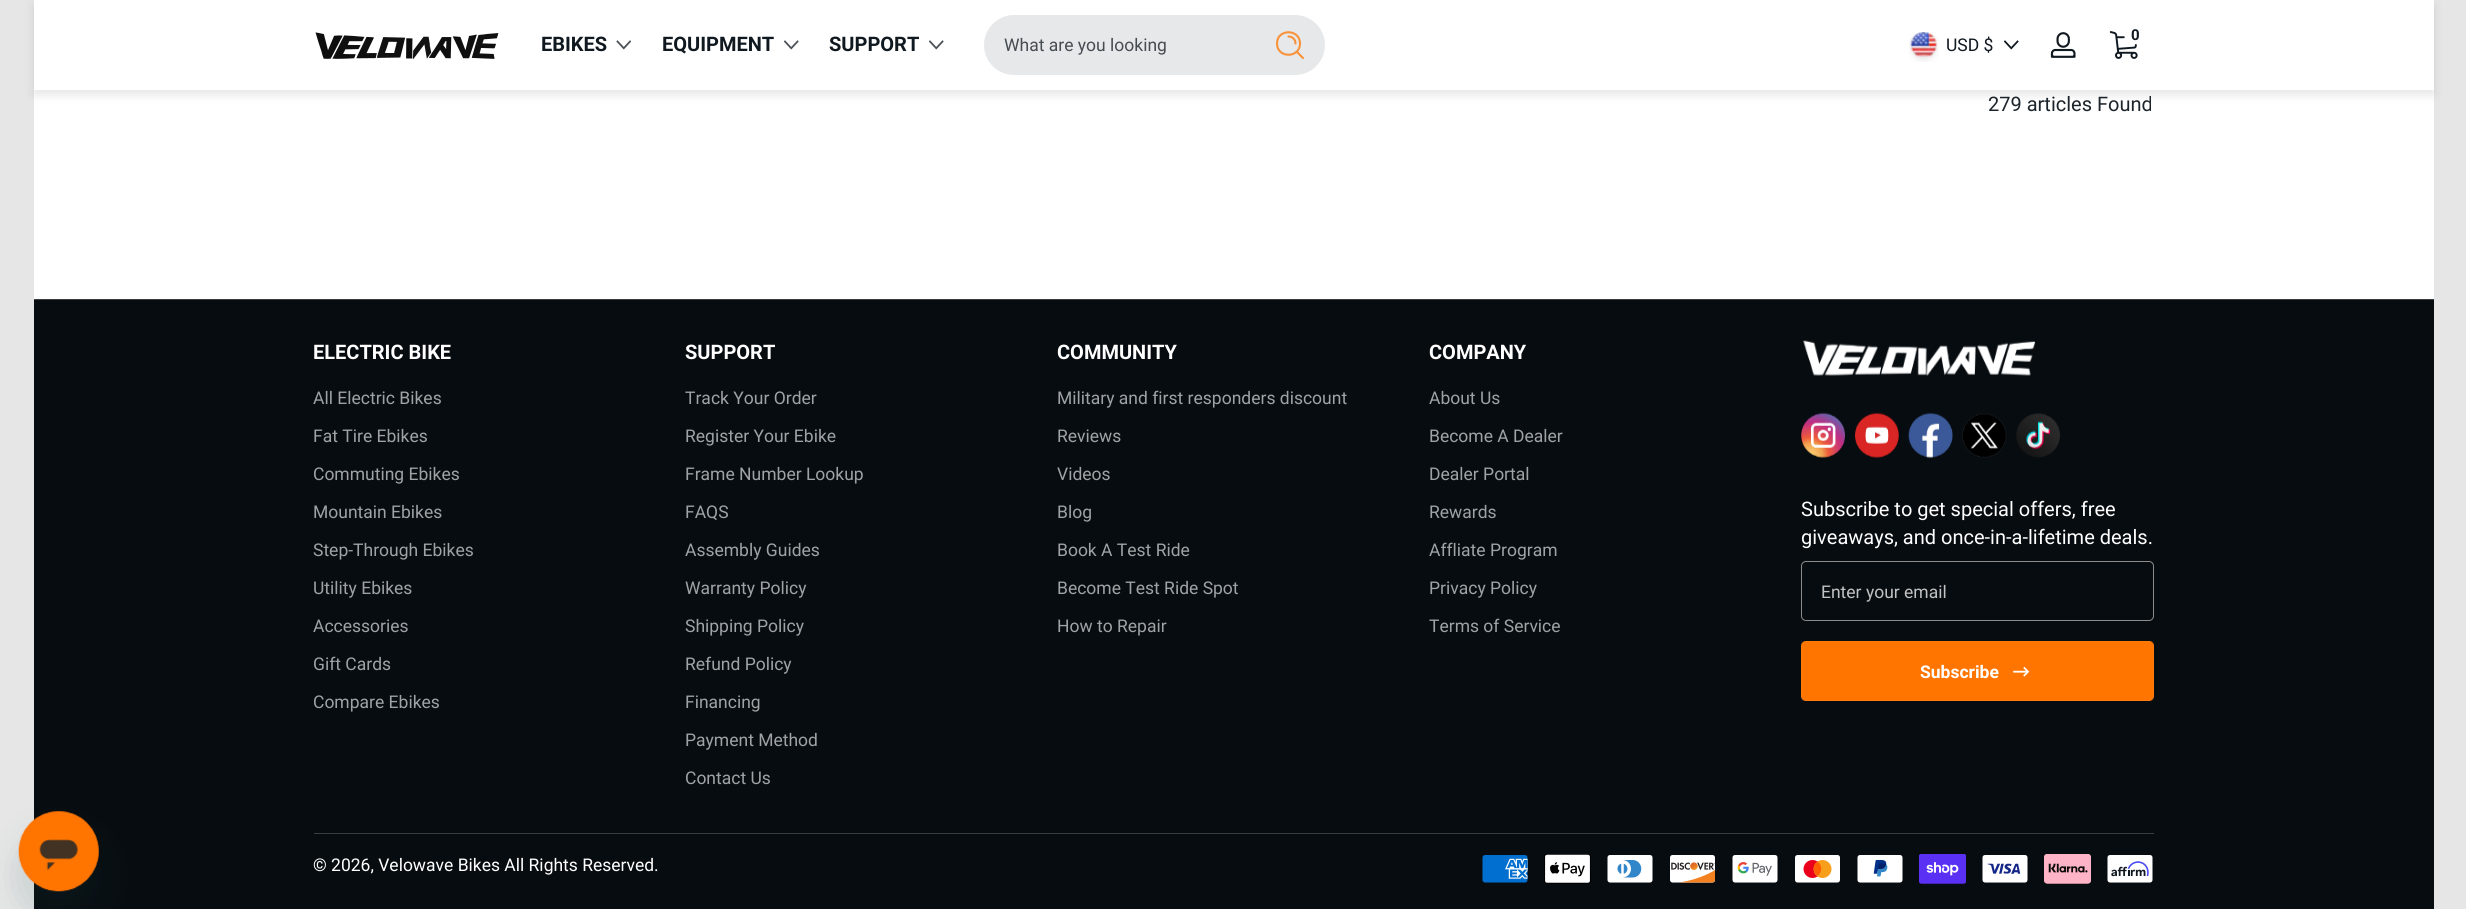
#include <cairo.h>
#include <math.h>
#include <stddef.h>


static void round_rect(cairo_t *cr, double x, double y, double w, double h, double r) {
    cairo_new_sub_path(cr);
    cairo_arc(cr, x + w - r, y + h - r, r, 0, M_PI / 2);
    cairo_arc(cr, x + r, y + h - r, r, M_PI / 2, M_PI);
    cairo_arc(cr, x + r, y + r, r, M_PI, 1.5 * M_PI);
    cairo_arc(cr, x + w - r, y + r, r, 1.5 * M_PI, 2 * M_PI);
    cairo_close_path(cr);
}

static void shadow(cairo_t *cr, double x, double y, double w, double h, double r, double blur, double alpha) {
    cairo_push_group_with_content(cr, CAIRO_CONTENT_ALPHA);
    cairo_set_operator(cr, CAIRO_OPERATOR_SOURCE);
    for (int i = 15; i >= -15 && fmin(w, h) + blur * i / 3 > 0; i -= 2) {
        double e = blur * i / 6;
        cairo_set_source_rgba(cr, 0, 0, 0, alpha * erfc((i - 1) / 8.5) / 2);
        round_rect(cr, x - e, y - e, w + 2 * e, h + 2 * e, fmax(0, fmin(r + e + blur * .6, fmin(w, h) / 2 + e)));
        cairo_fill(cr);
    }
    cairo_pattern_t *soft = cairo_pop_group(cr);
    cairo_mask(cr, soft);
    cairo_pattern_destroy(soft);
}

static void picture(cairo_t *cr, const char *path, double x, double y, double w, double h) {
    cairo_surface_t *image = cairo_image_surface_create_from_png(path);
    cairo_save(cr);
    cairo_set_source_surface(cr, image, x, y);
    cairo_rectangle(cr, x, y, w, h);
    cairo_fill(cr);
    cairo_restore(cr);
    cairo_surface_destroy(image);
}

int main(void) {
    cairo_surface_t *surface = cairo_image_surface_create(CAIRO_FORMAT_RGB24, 2466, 909);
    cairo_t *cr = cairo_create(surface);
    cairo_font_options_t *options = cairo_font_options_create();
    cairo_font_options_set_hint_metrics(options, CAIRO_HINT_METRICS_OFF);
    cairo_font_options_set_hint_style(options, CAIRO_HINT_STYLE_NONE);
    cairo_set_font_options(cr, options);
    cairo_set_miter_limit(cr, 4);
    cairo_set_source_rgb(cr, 0.902, 0.902, 0.902);
    cairo_paint(cr);
    cairo_set_source_rgb(cr, 1, 1, 1);
    cairo_rectangle(cr, 34, 90, 2400, 209);
    cairo_fill(cr);
    cairo_set_source_rgb(cr, 0, 0, 0);
    shadow(cr, 34, 5, 2400, 90, 0, 5, 0.1);
    cairo_set_source_rgb(cr, 1, 1, 1);
    cairo_rectangle(cr, 34, 0, 2400, 90);
    cairo_fill(cr);
    picture(cr, "img1.png", 315, 32, 184, 27);
    cairo_select_font_face(cr, "Roboto", CAIRO_FONT_SLANT_NORMAL, CAIRO_FONT_WEIGHT_BOLD);
    cairo_set_font_size(cr, 20);
    cairo_set_source_rgb(cr, 0.063, 0.094, 0.125);
    cairo_move_to(cr, 541, 51);
    cairo_show_text(cr, "EBIKES");
    picture(cr, "img2.png", 616, 40, 15, 10);
    cairo_move_to(cr, 662, 51);
    cairo_show_text(cr, "EQUIPMENT");
    picture(cr, "img3.png", 784, 40, 15, 10);
    cairo_move_to(cr, 829, 51);
    cairo_show_text(cr, "SUPPORT");
    picture(cr, "img3.png", 929, 40, 15, 10);
    cairo_set_source_rgb(cr, 0.906, 0.91, 0.914);
    round_rect(cr, 984, 15, 341, 60, 30);
    cairo_fill(cr);
    cairo_select_font_face(cr, "Roboto", CAIRO_FONT_SLANT_NORMAL, CAIRO_FONT_WEIGHT_NORMAL);
    cairo_set_font_size(cr, 17.5);
    cairo_set_source_rgb(cr, 0.275, 0.298, 0.322);
    cairo_move_to(cr, 1004, 51);
    cairo_show_text(cr, "What are you looking");
    cairo_new_path(cr);
    cairo_move_to(cr, 1288.5, 36.5);
    cairo_curve_to(cr, 1292.5, 36.5, 1295.5, 39.5, 1295.5, 43.5);
    cairo_move_to(cr, 1296.5, 51.5);
    cairo_line_to(cr, 1303, 58);
    cairo_move_to(cr, 1300, 43.5);
    cairo_curve_to(cr, 1300, 58.5, 1277, 58.5, 1277, 43.5);
    cairo_curve_to(cr, 1277, 28.5, 1300, 28.5, 1300, 43.5);
    cairo_close_path(cr);
    cairo_set_source_rgb(cr, 0.976, 0.573, 0.227);
    cairo_set_line_width(cr, 2.1);
    cairo_set_line_cap(cr, CAIRO_LINE_CAP_ROUND);
    cairo_set_line_join(cr, CAIRO_LINE_JOIN_ROUND);
    cairo_stroke(cr);
    picture(cr, "img4.png", 1909, 32, 30, 30);
    cairo_set_source_rgb(cr, 0.063, 0.094, 0.125);
    cairo_move_to(cr, 1946, 51);
    cairo_show_text(cr, "USD $");
    picture(cr, "img5.png", 2004, 40, 15, 10);
    picture(cr, "img6.png", 2050, 32, 26, 26);
    picture(cr, "img7.png", 2109, 31, 29, 28);
    cairo_select_font_face(cr, "Roboto", CAIRO_FONT_SLANT_NORMAL, CAIRO_FONT_WEIGHT_BOLD);
    cairo_set_font_size(cr, 15);
    cairo_move_to(cr, 2131, 40);
    cairo_show_text(cr, "0");
    cairo_select_font_face(cr, "Roboto", CAIRO_FONT_SLANT_NORMAL, CAIRO_FONT_WEIGHT_NORMAL);
    cairo_set_font_size(cr, 20);
    cairo_set_source_rgb(cr, 0.11, 0.141, 0.169);
    cairo_move_to(cr, 1988, 111);
    cairo_show_text(cr, "279 articles Found");
    cairo_set_source_rgb(cr, 0.031, 0.047, 0.063);
    cairo_rectangle(cr, 34, 300, 2400, 609);
    cairo_fill(cr);
    cairo_set_source_rgb(cr, 0.09, 0.286, 0.302);
    shadow(cr, 19, 836, 80, 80, 40, 19, 0.15);
    picture(cr, "img8.png", 18, 811, 81, 81);
    cairo_set_source_rgb(cr, 0.224, 0.239, 0.251);
    cairo_rectangle(cr, 34, 299, 2400, 1);
    cairo_fill(cr);
    cairo_select_font_face(cr, "Roboto", CAIRO_FONT_SLANT_NORMAL, CAIRO_FONT_WEIGHT_BOLD);
    cairo_set_source_rgb(cr, 1, 1, 1);
    cairo_move_to(cr, 313, 359);
    cairo_show_text(cr, "ELECTRIC BIKE");
    cairo_select_font_face(cr, "Roboto", CAIRO_FONT_SLANT_NORMAL, CAIRO_FONT_WEIGHT_NORMAL);
    cairo_set_font_size(cr, 17.5);
    cairo_set_source_rgb(cr, 0.624, 0.639, 0.651);
    cairo_move_to(cr, 313, 404);
    cairo_show_text(cr, "All Electric Bikes");
    cairo_move_to(cr, 313, 442);
    cairo_show_text(cr, "Fat Tire Ebikes");
    cairo_move_to(cr, 313, 480);
    cairo_show_text(cr, "Commuting Ebikes");
    cairo_move_to(cr, 313, 518);
    cairo_show_text(cr, "Mountain Ebikes");
    cairo_move_to(cr, 313, 556);
    cairo_show_text(cr, "Step-Through Ebikes");
    cairo_move_to(cr, 313, 594);
    cairo_show_text(cr, "Utility Ebikes");
    cairo_move_to(cr, 313, 632);
    cairo_show_text(cr, "Accessories");
    cairo_move_to(cr, 313, 670);
    cairo_show_text(cr, "Gift Cards");
    cairo_move_to(cr, 313, 708);
    cairo_show_text(cr, "Compare Ebikes");
    cairo_select_font_face(cr, "Roboto", CAIRO_FONT_SLANT_NORMAL, CAIRO_FONT_WEIGHT_BOLD);
    cairo_set_font_size(cr, 20);
    cairo_set_source_rgb(cr, 1, 1, 1);
    cairo_move_to(cr, 685, 359);
    cairo_show_text(cr, "SUPPORT");
    cairo_select_font_face(cr, "Roboto", CAIRO_FONT_SLANT_NORMAL, CAIRO_FONT_WEIGHT_NORMAL);
    cairo_set_font_size(cr, 17.5);
    cairo_set_source_rgb(cr, 0.624, 0.639, 0.651);
    cairo_move_to(cr, 685, 404);
    cairo_show_text(cr, "Track Your Order");
    cairo_move_to(cr, 685, 442);
    cairo_show_text(cr, "Register Your Ebike");
    cairo_move_to(cr, 685, 480);
    cairo_show_text(cr, "Frame Number Lookup");
    cairo_move_to(cr, 685, 518);
    cairo_show_text(cr, "FAQS");
    cairo_move_to(cr, 685, 556);
    cairo_show_text(cr, "Assembly Guides");
    cairo_move_to(cr, 685, 594);
    cairo_show_text(cr, "Warranty Policy");
    cairo_move_to(cr, 685, 632);
    cairo_show_text(cr, "Shipping Policy");
    cairo_move_to(cr, 685, 670);
    cairo_show_text(cr, "Refund Policy");
    cairo_move_to(cr, 685, 708);
    cairo_show_text(cr, "Financing");
    cairo_move_to(cr, 685, 746);
    cairo_show_text(cr, "Payment Method");
    cairo_move_to(cr, 685, 784);
    cairo_show_text(cr, "Contact Us");
    cairo_select_font_face(cr, "Roboto", CAIRO_FONT_SLANT_NORMAL, CAIRO_FONT_WEIGHT_BOLD);
    cairo_set_font_size(cr, 20);
    cairo_set_source_rgb(cr, 1, 1, 1);
    cairo_move_to(cr, 1057, 359);
    cairo_show_text(cr, "COMMUNITY");
    cairo_select_font_face(cr, "Roboto", CAIRO_FONT_SLANT_NORMAL, CAIRO_FONT_WEIGHT_NORMAL);
    cairo_set_font_size(cr, 17.5);
    cairo_set_source_rgb(cr, 0.624, 0.639, 0.651);
    cairo_move_to(cr, 1057, 404);
    cairo_show_text(cr, "Military and first responders discount");
    cairo_move_to(cr, 1057, 442);
    cairo_show_text(cr, "Reviews");
    cairo_move_to(cr, 1057, 480);
    cairo_show_text(cr, "Videos");
    cairo_move_to(cr, 1057, 518);
    cairo_show_text(cr, "Blog");
    cairo_move_to(cr, 1057, 556);
    cairo_show_text(cr, "Book A Test Ride");
    cairo_move_to(cr, 1057, 594);
    cairo_show_text(cr, "Become Test Ride Spot");
    cairo_move_to(cr, 1057, 632);
    cairo_show_text(cr, "How to Repair");
    cairo_select_font_face(cr, "Roboto", CAIRO_FONT_SLANT_NORMAL, CAIRO_FONT_WEIGHT_BOLD);
    cairo_set_font_size(cr, 20);
    cairo_set_source_rgb(cr, 1, 1, 1);
    cairo_move_to(cr, 1429, 359);
    cairo_show_text(cr, "COMPANY");
    cairo_select_font_face(cr, "Roboto", CAIRO_FONT_SLANT_NORMAL, CAIRO_FONT_WEIGHT_NORMAL);
    cairo_set_font_size(cr, 17.5);
    cairo_set_source_rgb(cr, 0.624, 0.639, 0.651);
    cairo_move_to(cr, 1429, 404);
    cairo_show_text(cr, "About Us");
    cairo_move_to(cr, 1429, 442);
    cairo_show_text(cr, "Become A Dealer");
    cairo_move_to(cr, 1429, 480);
    cairo_show_text(cr, "Dealer Portal");
    cairo_move_to(cr, 1429, 518);
    cairo_show_text(cr, "Rewards");
    cairo_move_to(cr, 1429, 556);
    cairo_show_text(cr, "Affliate Program");
    cairo_move_to(cr, 1429, 594);
    cairo_show_text(cr, "Privacy Policy");
    cairo_move_to(cr, 1429, 632);
    cairo_show_text(cr, "Terms of Service");
    picture(cr, "img9.png", 1803, 340, 233, 36);
    picture(cr, "img10.png", 1801, 412, 44, 46);
    picture(cr, "img11.png", 1855, 412, 44, 46);
    picture(cr, "img12.png", 1908, 412, 45, 46);
    picture(cr, "img13.png", 1962, 413, 45, 45);
    picture(cr, "img14.png", 2016, 413, 44, 45);
    cairo_set_font_size(cr, 20);
    cairo_set_source_rgb(cr, 1, 1, 1);
    cairo_move_to(cr, 1801, 516);
    cairo_show_text(cr, "Subscribe to get special offers, free");
    cairo_move_to(cr, 1801, 544);
    cairo_show_text(cr, "giveaways, and once-in-a-lifetime deals.");
    round_rect(cr, 1801.5, 561.5, 352, 59, 4.5);
    cairo_set_source_rgb(cr, 0.549, 0.549, 0.549);
    cairo_set_line_width(cr, 1);
    cairo_set_line_cap(cr, CAIRO_LINE_CAP_BUTT);
    cairo_set_line_join(cr, CAIRO_LINE_JOIN_MITER);
    cairo_stroke(cr);
    cairo_set_font_size(cr, 17.5);
    cairo_set_source_rgb(cr, 0.757, 0.761, 0.765);
    cairo_move_to(cr, 1821, 598);
    cairo_show_text(cr, "Enter your email");
    cairo_set_source_rgb(cr, 1, 0.459, 0);
    round_rect(cr, 1801, 641, 353, 60, 5);
    cairo_fill(cr);
    picture(cr, "img15.png", 2013, 666, 17, 11);
    cairo_rectangle(cr, 1801.5, 641.5, 352, 59);
    cairo_set_source_rgba(cr, 1, 1, 1, 0.05);
    cairo_stroke(cr);
    cairo_select_font_face(cr, "Roboto", CAIRO_FONT_SLANT_NORMAL, CAIRO_FONT_WEIGHT_BOLD);
    cairo_set_source_rgb(cr, 1, 1, 1);
    cairo_move_to(cr, 1920, 678);
    cairo_show_text(cr, "Subscribe");
    cairo_set_source_rgb(cr, 0.224, 0.239, 0.251);
    cairo_rectangle(cr, 314, 833, 1840, 1);
    cairo_fill(cr);
    cairo_select_font_face(cr, "Roboto", CAIRO_FONT_SLANT_NORMAL, CAIRO_FONT_WEIGHT_NORMAL);
    cairo_set_source_rgb(cr, 1, 1, 1);
    cairo_move_to(cr, 313, 871);
    cairo_show_text(cr, "© 2026, Velowave Bikes All Rights Reserved.");
    picture(cr, "img16.png", 1482, 855, 46, 28);
    picture(cr, "img17.png", 1544, 854, 47, 30);
    picture(cr, "img18.png", 1607, 855, 46, 28);
    picture(cr, "img19.png", 1670, 855, 46, 28);
    picture(cr, "img20.png", 1732, 855, 46, 28);
    picture(cr, "img21.png", 1795, 855, 45, 28);
    picture(cr, "img22.png", 1857, 855, 46, 28);
    picture(cr, "img23.png", 1919, 854, 47, 30);
    picture(cr, "img24.png", 1982, 855, 46, 28);
    picture(cr, "img25.png", 2044, 854, 47, 30);
    picture(cr, "img26.png", 2107, 855, 46, 28);
    cairo_surface_write_to_png(surface, "page.png");
    cairo_font_options_destroy(options);
    cairo_destroy(cr);
    cairo_surface_destroy(surface);
    return 0;
}
